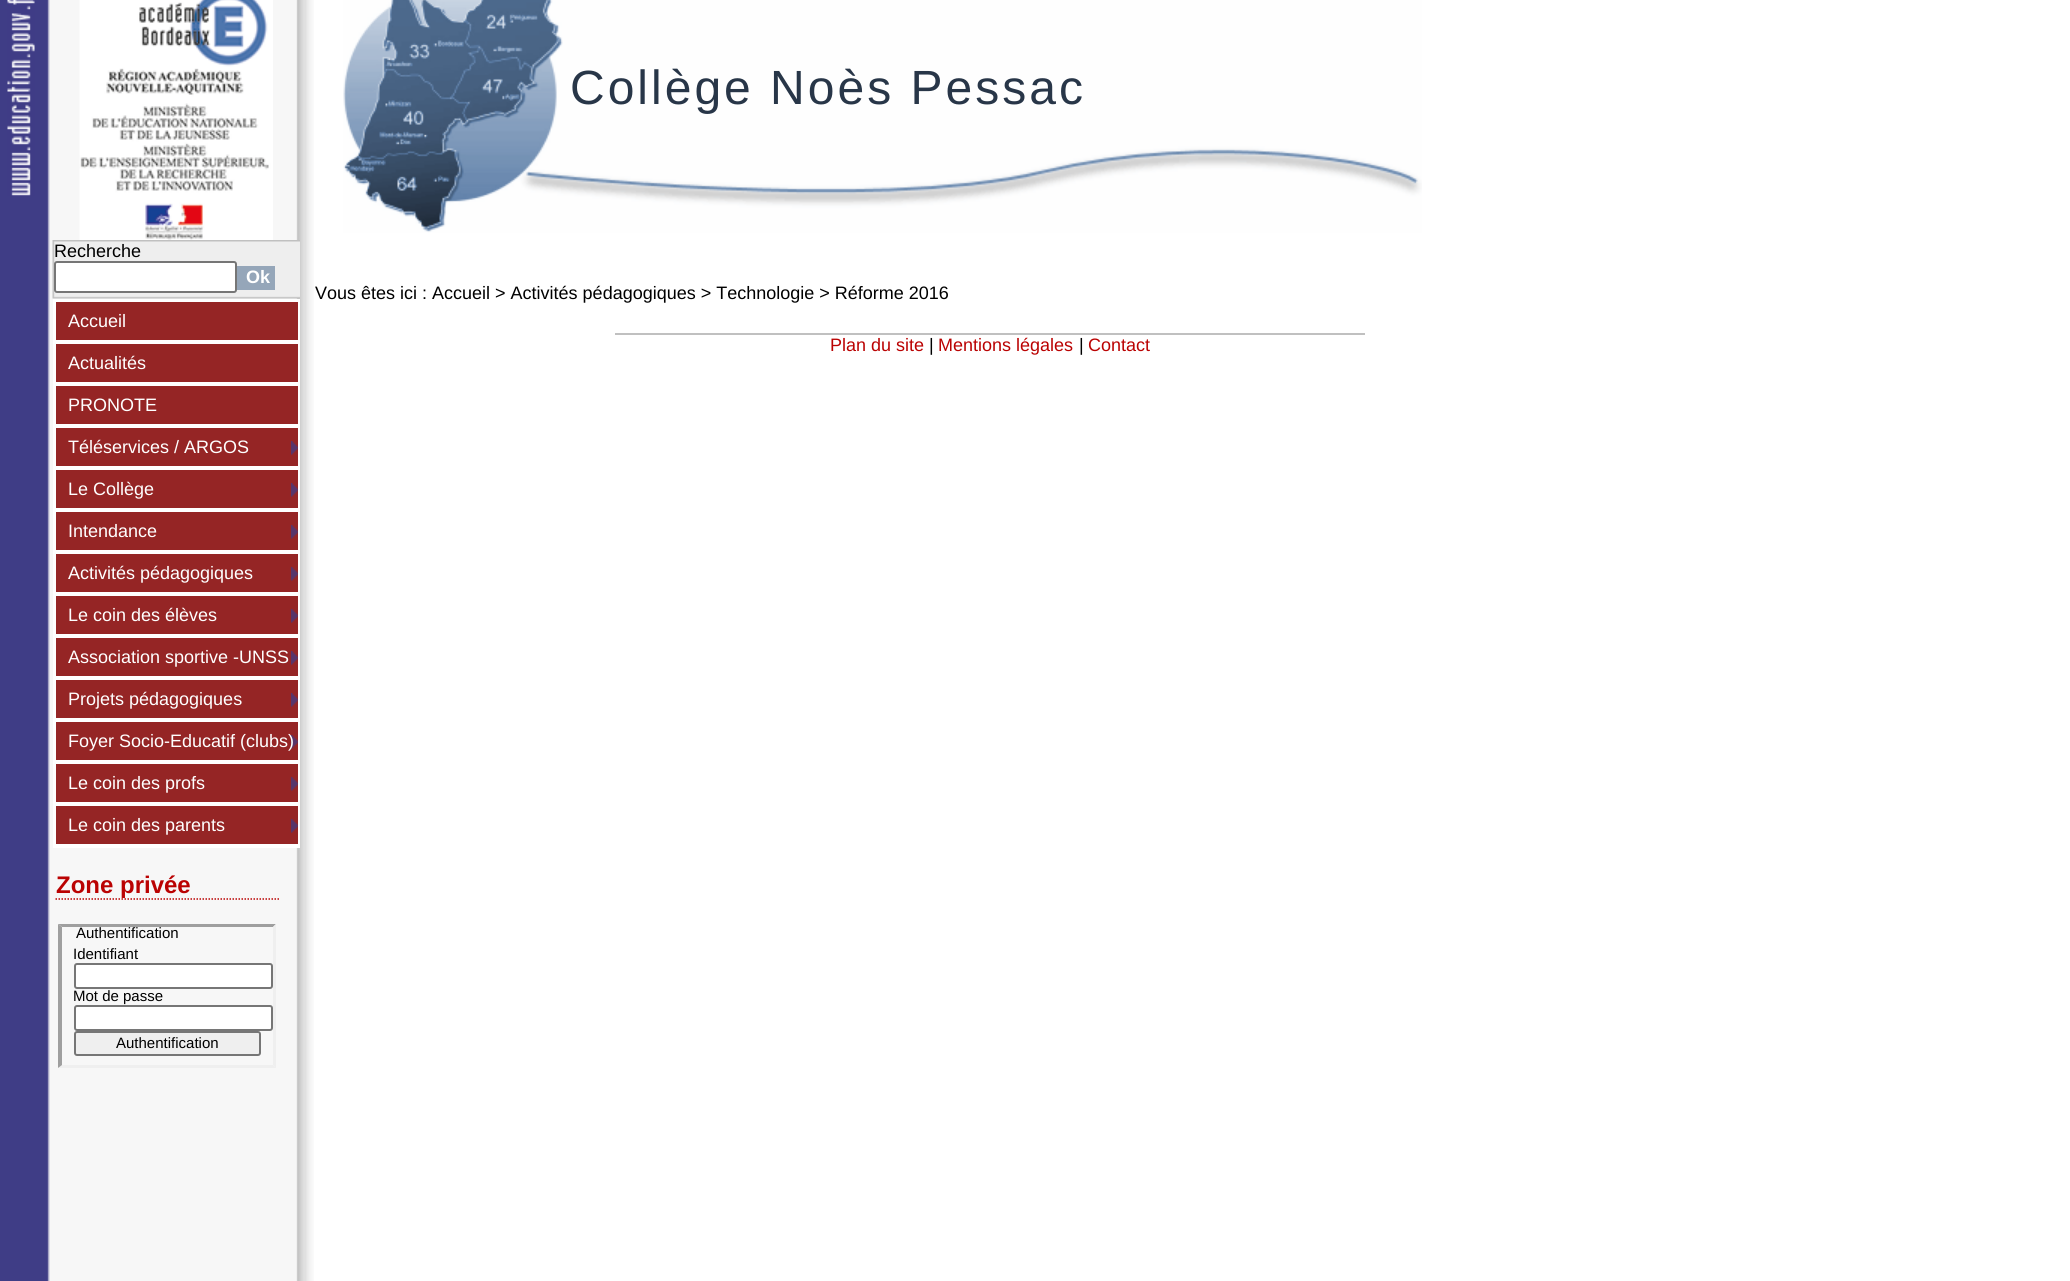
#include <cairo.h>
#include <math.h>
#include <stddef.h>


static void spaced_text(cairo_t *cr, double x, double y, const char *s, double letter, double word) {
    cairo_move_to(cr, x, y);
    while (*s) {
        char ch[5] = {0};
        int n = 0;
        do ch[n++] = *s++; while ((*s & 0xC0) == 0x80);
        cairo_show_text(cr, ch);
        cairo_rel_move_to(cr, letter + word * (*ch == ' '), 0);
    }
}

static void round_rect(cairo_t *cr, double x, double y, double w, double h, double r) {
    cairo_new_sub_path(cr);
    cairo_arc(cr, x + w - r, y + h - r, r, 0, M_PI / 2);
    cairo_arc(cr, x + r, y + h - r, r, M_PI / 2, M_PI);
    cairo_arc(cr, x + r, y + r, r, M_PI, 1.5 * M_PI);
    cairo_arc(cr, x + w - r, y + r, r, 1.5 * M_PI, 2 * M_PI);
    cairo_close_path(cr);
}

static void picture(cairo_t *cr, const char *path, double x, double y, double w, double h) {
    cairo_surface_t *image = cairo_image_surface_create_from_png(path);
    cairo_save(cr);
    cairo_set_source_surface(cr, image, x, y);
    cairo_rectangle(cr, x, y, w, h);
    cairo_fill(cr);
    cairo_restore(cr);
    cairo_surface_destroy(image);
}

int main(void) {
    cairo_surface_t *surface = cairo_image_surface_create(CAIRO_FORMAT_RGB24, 2070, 1281);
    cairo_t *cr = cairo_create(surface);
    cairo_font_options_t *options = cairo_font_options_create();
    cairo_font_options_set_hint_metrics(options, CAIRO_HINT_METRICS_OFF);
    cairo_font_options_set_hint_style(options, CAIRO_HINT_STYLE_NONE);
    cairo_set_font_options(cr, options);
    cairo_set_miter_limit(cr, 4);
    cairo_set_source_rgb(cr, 1, 1, 1);
    cairo_paint(cr);
    picture(cr, "img1.png", 0, 0, 314, 1281);
    picture(cr, "img2.png", 7, 0, 28, 196);
    picture(cr, "img3.png", 343, 0, 1079, 233);
    picture(cr, "img4.png", 79, 0, 194, 240);
    cairo_select_font_face(cr, "Liberation Sans", CAIRO_FONT_SLANT_NORMAL, CAIRO_FONT_WEIGHT_NORMAL);
    cairo_set_font_size(cr, 48);
    cairo_set_source_rgb(cr, 0.157, 0.212, 0.282);
    spaced_text(cr, 570, 104, "Collège Noès Pessac", 3, 0);
    picture(cr, "img5.png", 52, 240, 248, 59);
    cairo_set_font_size(cr, 18);
    cairo_set_source_rgb(cr, 0, 0, 0);
    cairo_move_to(cr, 54, 257);
    cairo_show_text(cr, "Recherche");
    cairo_set_source_rgb(cr, 1, 1, 1);
    round_rect(cr, 55, 262, 181, 30, 2);
    cairo_fill_preserve(cr);
    cairo_set_source_rgb(cr, 0.463, 0.463, 0.463);
    cairo_stroke(cr);
    cairo_set_source_rgb(cr, 0.584, 0.651, 0.725);
    cairo_rectangle(cr, 237, 266, 38, 24);
    cairo_fill(cr);
    cairo_select_font_face(cr, "Liberation Sans", CAIRO_FONT_SLANT_NORMAL, CAIRO_FONT_WEIGHT_BOLD);
    cairo_set_source_rgb(cr, 1, 1, 1);
    cairo_move_to(cr, 246, 283);
    cairo_show_text(cr, "Ok");
    cairo_rectangle(cr, 54, 300, 245, 547);
    cairo_stroke(cr);
    cairo_set_source_rgb(cr, 0.584, 0.145, 0.145);
    cairo_rectangle(cr, 55, 301, 244, 40);
    cairo_fill_preserve(cr);
    cairo_set_source_rgb(cr, 1, 1, 1);
    cairo_stroke(cr);
    cairo_select_font_face(cr, "Liberation Sans", CAIRO_FONT_SLANT_NORMAL, CAIRO_FONT_WEIGHT_NORMAL);
    cairo_move_to(cr, 68, 327);
    cairo_show_text(cr, "Accueil");
    cairo_set_source_rgb(cr, 0.584, 0.145, 0.145);
    cairo_rectangle(cr, 55, 343, 244, 40);
    cairo_fill_preserve(cr);
    cairo_set_source_rgb(cr, 1, 1, 1);
    cairo_stroke(cr);
    cairo_move_to(cr, 68, 369);
    cairo_show_text(cr, "Actualités");
    cairo_set_source_rgb(cr, 0.584, 0.145, 0.145);
    cairo_rectangle(cr, 55, 385, 244, 40);
    cairo_fill_preserve(cr);
    cairo_set_source_rgb(cr, 1, 1, 1);
    cairo_stroke(cr);
    cairo_move_to(cr, 68, 411);
    cairo_show_text(cr, "PRONOTE");
    cairo_set_source_rgb(cr, 0.584, 0.145, 0.145);
    cairo_rectangle(cr, 56, 428, 242, 38);
    cairo_fill(cr);
    picture(cr, "img6.png", 291, 441, 7, 14);
    cairo_rectangle(cr, 55, 427, 244, 40);
    cairo_set_source_rgb(cr, 1, 1, 1);
    cairo_stroke(cr);
    cairo_move_to(cr, 68, 453);
    cairo_show_text(cr, "Téléservices / ARGOS");
    cairo_set_source_rgb(cr, 0.584, 0.145, 0.145);
    cairo_rectangle(cr, 56, 470, 242, 38);
    cairo_fill(cr);
    picture(cr, "img6.png", 291, 483, 7, 14);
    cairo_rectangle(cr, 55, 469, 244, 40);
    cairo_set_source_rgb(cr, 1, 1, 1);
    cairo_stroke(cr);
    cairo_move_to(cr, 68, 495);
    cairo_show_text(cr, "Le Collège");
    cairo_set_source_rgb(cr, 0.584, 0.145, 0.145);
    cairo_rectangle(cr, 56, 512, 242, 38);
    cairo_fill(cr);
    picture(cr, "img6.png", 291, 525, 7, 14);
    cairo_rectangle(cr, 55, 511, 244, 40);
    cairo_set_source_rgb(cr, 1, 1, 1);
    cairo_stroke(cr);
    cairo_move_to(cr, 68, 537);
    cairo_show_text(cr, "Intendance");
    cairo_set_source_rgb(cr, 0.584, 0.145, 0.145);
    cairo_rectangle(cr, 56, 554, 242, 38);
    cairo_fill(cr);
    picture(cr, "img6.png", 291, 567, 7, 14);
    cairo_rectangle(cr, 55, 553, 244, 40);
    cairo_set_source_rgb(cr, 1, 1, 1);
    cairo_stroke(cr);
    cairo_move_to(cr, 68, 579);
    cairo_show_text(cr, "Activités pédagogiques");
    cairo_set_source_rgb(cr, 0.584, 0.145, 0.145);
    cairo_rectangle(cr, 56, 596, 242, 38);
    cairo_fill(cr);
    picture(cr, "img6.png", 291, 609, 7, 14);
    cairo_rectangle(cr, 55, 595, 244, 40);
    cairo_set_source_rgb(cr, 1, 1, 1);
    cairo_stroke(cr);
    cairo_move_to(cr, 68, 621);
    cairo_show_text(cr, "Le coin des élèves");
    cairo_set_source_rgb(cr, 0.584, 0.145, 0.145);
    cairo_rectangle(cr, 56, 638, 242, 38);
    cairo_fill(cr);
    picture(cr, "img6.png", 291, 651, 7, 14);
    cairo_rectangle(cr, 55, 637, 244, 40);
    cairo_set_source_rgb(cr, 1, 1, 1);
    cairo_stroke(cr);
    cairo_move_to(cr, 68, 663);
    cairo_show_text(cr, "Association sportive -UNSS");
    cairo_set_source_rgb(cr, 0.584, 0.145, 0.145);
    cairo_rectangle(cr, 56, 680, 242, 38);
    cairo_fill(cr);
    picture(cr, "img6.png", 291, 693, 7, 14);
    cairo_rectangle(cr, 55, 679, 244, 40);
    cairo_set_source_rgb(cr, 1, 1, 1);
    cairo_stroke(cr);
    cairo_move_to(cr, 68, 705);
    cairo_show_text(cr, "Projets pédagogiques");
    cairo_set_source_rgb(cr, 0.584, 0.145, 0.145);
    cairo_rectangle(cr, 56, 722, 242, 38);
    cairo_fill(cr);
    picture(cr, "img6.png", 291, 735, 7, 14);
    cairo_rectangle(cr, 55, 721, 244, 40);
    cairo_set_source_rgb(cr, 1, 1, 1);
    cairo_stroke(cr);
    cairo_move_to(cr, 68, 747);
    cairo_show_text(cr, "Foyer Socio-Educatif (clubs)");
    cairo_set_source_rgb(cr, 0.584, 0.145, 0.145);
    cairo_rectangle(cr, 56, 764, 242, 38);
    cairo_fill(cr);
    picture(cr, "img6.png", 291, 777, 7, 14);
    cairo_rectangle(cr, 55, 763, 244, 40);
    cairo_set_source_rgb(cr, 1, 1, 1);
    cairo_stroke(cr);
    cairo_move_to(cr, 68, 789);
    cairo_show_text(cr, "Le coin des profs");
    cairo_set_source_rgb(cr, 0.584, 0.145, 0.145);
    cairo_rectangle(cr, 56, 806, 242, 38);
    cairo_fill(cr);
    picture(cr, "img6.png", 291, 819, 7, 14);
    cairo_rectangle(cr, 55, 805, 244, 40);
    cairo_set_source_rgb(cr, 1, 1, 1);
    cairo_stroke(cr);
    cairo_move_to(cr, 68, 831);
    cairo_show_text(cr, "Le coin des parents");
    cairo_new_path(cr);
    cairo_move_to(cr, 55.5, 899);
    cairo_line_to(cr, 279, 899);
    cairo_set_source_rgb(cr, 0.729, 0.008, 0.008);
    cairo_set_line_width(cr, 1.5);
    cairo_set_dash(cr, (double[]){1.5, 1.5}, 2, 0);
    cairo_stroke(cr);
    cairo_select_font_face(cr, "Liberation Sans", CAIRO_FONT_SLANT_NORMAL, CAIRO_FONT_WEIGHT_BOLD);
    cairo_set_font_size(cr, 24);
    cairo_move_to(cr, 56, 893);
    cairo_show_text(cr, "Zone privée");
    cairo_set_source_rgb(cr, 0.624, 0.624, 0.624);
    cairo_new_path(cr);
    cairo_move_to(cr, 58, 924);
    cairo_line_to(cr, 276, 924);
    cairo_line_to(cr, 273, 927);
    cairo_line_to(cr, 62, 927);
    cairo_close_path(cr);
    cairo_fill(cr);
    cairo_set_source_rgb(cr, 0.937, 0.937, 0.937);
    cairo_new_path(cr);
    cairo_move_to(cr, 276, 924);
    cairo_line_to(cr, 276, 1068);
    cairo_line_to(cr, 273, 1065);
    cairo_line_to(cr, 273, 927);
    cairo_close_path(cr);
    cairo_fill(cr);
    cairo_new_path(cr);
    cairo_move_to(cr, 276, 1068);
    cairo_line_to(cr, 58, 1068);
    cairo_line_to(cr, 62, 1065);
    cairo_line_to(cr, 273, 1065);
    cairo_close_path(cr);
    cairo_fill(cr);
    cairo_set_source_rgb(cr, 0.624, 0.624, 0.624);
    cairo_new_path(cr);
    cairo_move_to(cr, 58, 1068);
    cairo_line_to(cr, 58, 924);
    cairo_line_to(cr, 62, 927);
    cairo_line_to(cr, 62, 1065);
    cairo_close_path(cr);
    cairo_fill(cr);
    cairo_select_font_face(cr, "Liberation Sans", CAIRO_FONT_SLANT_NORMAL, CAIRO_FONT_WEIGHT_NORMAL);
    cairo_set_font_size(cr, 15);
    cairo_set_source_rgb(cr, 0, 0, 0);
    cairo_move_to(cr, 76, 938);
    cairo_show_text(cr, "Authentification");
    cairo_move_to(cr, 73, 959);
    cairo_show_text(cr, "Identifiant");
    cairo_set_source_rgb(cr, 1, 1, 1);
    round_rect(cr, 75, 964, 197, 24, 2);
    cairo_fill_preserve(cr);
    cairo_set_source_rgb(cr, 0.463, 0.463, 0.463);
    cairo_set_line_width(cr, 2);
    cairo_set_dash(cr, NULL, 0, 0);
    cairo_stroke(cr);
    cairo_set_source_rgb(cr, 0, 0, 0);
    cairo_move_to(cr, 73, 1001);
    cairo_show_text(cr, "Mot de passe");
    cairo_set_source_rgb(cr, 1, 1, 1);
    round_rect(cr, 75, 1006, 197, 24, 2);
    cairo_fill_preserve(cr);
    cairo_set_source_rgb(cr, 0.463, 0.463, 0.463);
    cairo_stroke(cr);
    cairo_set_source_rgb(cr, 0.937, 0.937, 0.937);
    round_rect(cr, 75, 1032, 185, 23, 2);
    cairo_fill_preserve(cr);
    cairo_set_source_rgb(cr, 0.463, 0.463, 0.463);
    cairo_stroke(cr);
    cairo_set_source_rgb(cr, 0, 0, 0);
    cairo_move_to(cr, 116, 1048);
    cairo_show_text(cr, "Authentification");
    cairo_set_font_size(cr, 18);
    cairo_move_to(cr, 315, 299);
    cairo_show_text(cr, "Vous êtes ici : Accueil > Activités pédagogiques > Technologie > Réforme 2016");
    cairo_set_source_rgb(cr, 0.753, 0.753, 0.753);
    cairo_rectangle(cr, 615, 333, 750, 2);
    cairo_fill(cr);
    cairo_set_source_rgb(cr, 0.729, 0.008, 0.008);
    cairo_move_to(cr, 830, 351);
    cairo_show_text(cr, "Plan du site");
    cairo_set_source_rgb(cr, 0, 0, 0);
    cairo_move_to(cr, 929, 351);
    cairo_show_text(cr, "|");
    cairo_set_source_rgb(cr, 0.729, 0.008, 0.008);
    cairo_move_to(cr, 938, 351);
    cairo_show_text(cr, "Mentions légales");
    cairo_set_source_rgb(cr, 0, 0, 0);
    cairo_move_to(cr, 1079, 351);
    cairo_show_text(cr, "|");
    cairo_set_source_rgb(cr, 0.729, 0.008, 0.008);
    cairo_move_to(cr, 1088, 351);
    cairo_show_text(cr, "Contact");
    cairo_surface_write_to_png(surface, "page.png");
    cairo_font_options_destroy(options);
    cairo_destroy(cr);
    cairo_surface_destroy(surface);
    return 0;
}
